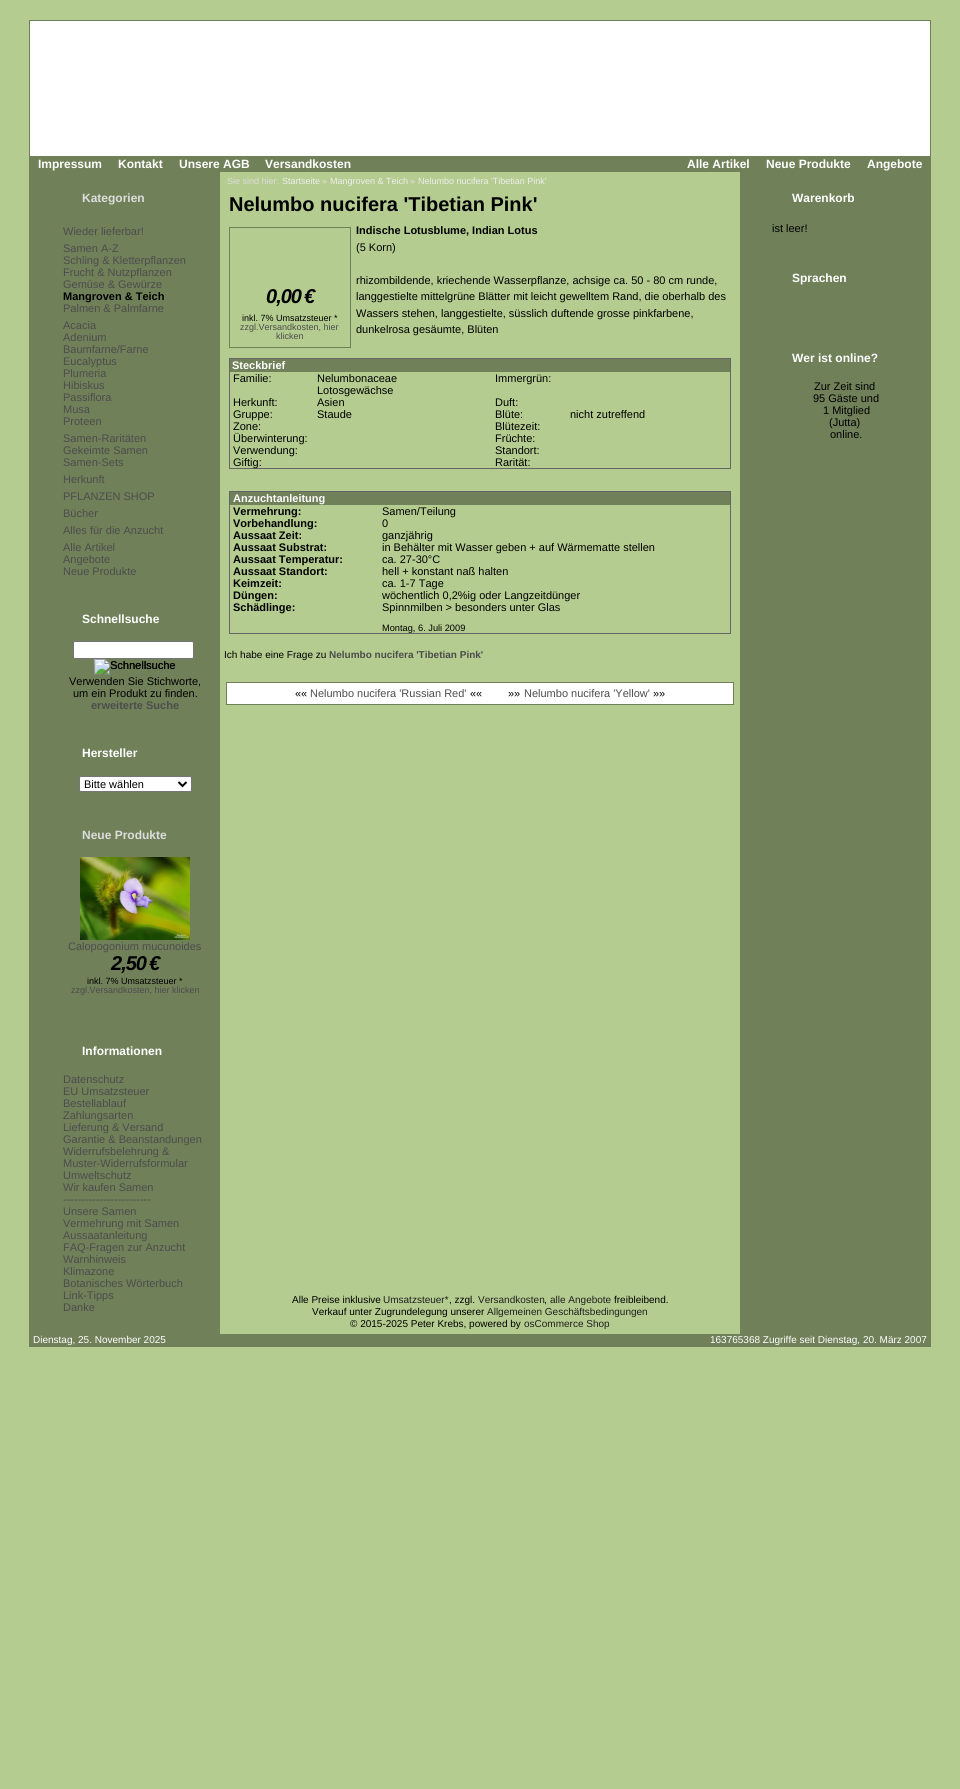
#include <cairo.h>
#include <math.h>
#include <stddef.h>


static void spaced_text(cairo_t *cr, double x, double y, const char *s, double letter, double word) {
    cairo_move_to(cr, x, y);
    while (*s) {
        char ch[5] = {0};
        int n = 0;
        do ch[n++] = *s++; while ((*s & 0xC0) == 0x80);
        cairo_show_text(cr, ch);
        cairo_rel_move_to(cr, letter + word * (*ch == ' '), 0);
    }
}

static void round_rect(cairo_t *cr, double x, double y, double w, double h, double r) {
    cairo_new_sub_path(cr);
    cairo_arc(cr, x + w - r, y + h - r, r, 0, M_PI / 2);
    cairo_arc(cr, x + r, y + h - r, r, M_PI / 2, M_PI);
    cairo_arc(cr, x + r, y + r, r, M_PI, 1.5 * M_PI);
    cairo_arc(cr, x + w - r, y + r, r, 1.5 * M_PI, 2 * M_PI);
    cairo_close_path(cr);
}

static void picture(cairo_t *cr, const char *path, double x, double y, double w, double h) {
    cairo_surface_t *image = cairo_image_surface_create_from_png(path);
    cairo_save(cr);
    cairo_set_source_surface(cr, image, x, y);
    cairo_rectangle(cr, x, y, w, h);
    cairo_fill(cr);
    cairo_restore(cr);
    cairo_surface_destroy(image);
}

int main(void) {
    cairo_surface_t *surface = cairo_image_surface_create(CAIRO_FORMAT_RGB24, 960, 1789);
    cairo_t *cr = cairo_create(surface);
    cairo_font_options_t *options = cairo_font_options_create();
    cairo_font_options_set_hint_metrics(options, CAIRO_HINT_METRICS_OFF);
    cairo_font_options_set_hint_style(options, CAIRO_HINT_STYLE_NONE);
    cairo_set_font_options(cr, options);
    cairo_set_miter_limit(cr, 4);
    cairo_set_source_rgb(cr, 0.706, 0.8, 0.561);
    cairo_paint(cr);
    cairo_set_source_rgb(cr, 1, 1, 1);
    cairo_rectangle(cr, 30, 21, 900, 135);
    cairo_fill(cr);
    cairo_rectangle(cr, 29.5, 20.5, 901, 1326);
    cairo_set_source_rgb(cr, 0.439, 0.502, 0.349);
    cairo_set_line_width(cr, 1);
    cairo_stroke(cr);
    cairo_rectangle(cr, 30, 156, 900, 16);
    cairo_fill(cr);
    cairo_select_font_face(cr, "Liberation Sans", CAIRO_FONT_SLANT_NORMAL, CAIRO_FONT_WEIGHT_BOLD);
    cairo_set_font_size(cr, 12);
    cairo_set_source_rgb(cr, 1, 1, 1);
    cairo_move_to(cr, 38, 168);
    cairo_show_text(cr, "Impressum");
    cairo_move_to(cr, 118, 168);
    cairo_show_text(cr, "Kontakt");
    cairo_move_to(cr, 179, 168);
    cairo_show_text(cr, "Unsere AGB");
    cairo_move_to(cr, 265, 168);
    cairo_show_text(cr, "Versandkosten");
    cairo_move_to(cr, 687, 168);
    cairo_show_text(cr, "Alle Artikel");
    cairo_move_to(cr, 766, 168);
    cairo_show_text(cr, "Neue Produkte");
    cairo_move_to(cr, 867, 168);
    cairo_show_text(cr, "Angebote");
    cairo_set_source_rgb(cr, 0.439, 0.502, 0.349);
    cairo_rectangle(cr, 30, 172, 190, 1162);
    cairo_fill(cr);
    cairo_set_source_rgb(cr, 0.867, 0.867, 0.867);
    cairo_move_to(cr, 82, 202);
    cairo_show_text(cr, "Kategorien");
    cairo_select_font_face(cr, "Liberation Sans", CAIRO_FONT_SLANT_NORMAL, CAIRO_FONT_WEIGHT_NORMAL);
    cairo_set_font_size(cr, 11);
    cairo_set_source_rgb(cr, 0.298, 0.298, 0.298);
    cairo_move_to(cr, 63, 235);
    cairo_show_text(cr, "Wieder lieferbar!");
    cairo_move_to(cr, 63, 252);
    cairo_show_text(cr, "Samen A-Z");
    cairo_move_to(cr, 63, 264);
    cairo_show_text(cr, "Schling & Kletterpflanzen");
    cairo_move_to(cr, 63, 276);
    cairo_show_text(cr, "Frucht & Nutzpflanzen");
    cairo_move_to(cr, 63, 288);
    cairo_show_text(cr, "Gemüse & Gewürze");
    cairo_select_font_face(cr, "Liberation Sans", CAIRO_FONT_SLANT_NORMAL, CAIRO_FONT_WEIGHT_BOLD);
    cairo_set_source_rgb(cr, 0, 0, 0);
    cairo_move_to(cr, 63, 300);
    cairo_show_text(cr, "Mangroven & Teich");
    cairo_select_font_face(cr, "Liberation Sans", CAIRO_FONT_SLANT_NORMAL, CAIRO_FONT_WEIGHT_NORMAL);
    cairo_set_source_rgb(cr, 0.298, 0.298, 0.298);
    cairo_move_to(cr, 63, 312);
    cairo_show_text(cr, "Palmen & Palmfarne");
    cairo_move_to(cr, 63, 329);
    cairo_show_text(cr, "Acacia");
    cairo_move_to(cr, 63, 341);
    cairo_show_text(cr, "Adenium");
    cairo_move_to(cr, 63, 353);
    cairo_show_text(cr, "Baumfarne/Farne");
    cairo_move_to(cr, 63, 365);
    cairo_show_text(cr, "Eucalyptus");
    cairo_move_to(cr, 63, 377);
    cairo_show_text(cr, "Plumeria");
    cairo_move_to(cr, 63, 389);
    cairo_show_text(cr, "Hibiskus");
    cairo_move_to(cr, 63, 401);
    cairo_show_text(cr, "Passiflora");
    cairo_move_to(cr, 63, 413);
    cairo_show_text(cr, "Musa");
    cairo_move_to(cr, 63, 425);
    cairo_show_text(cr, "Proteen");
    cairo_move_to(cr, 63, 442);
    cairo_show_text(cr, "Samen-Raritäten");
    cairo_move_to(cr, 63, 454);
    cairo_show_text(cr, "Gekeimte Samen");
    cairo_move_to(cr, 63, 466);
    cairo_show_text(cr, "Samen-Sets");
    cairo_move_to(cr, 63, 483);
    cairo_show_text(cr, "Herkunft");
    cairo_move_to(cr, 63, 500);
    cairo_show_text(cr, "PFLANZEN SHOP");
    cairo_move_to(cr, 63, 517);
    cairo_show_text(cr, "Bücher");
    cairo_move_to(cr, 63, 534);
    cairo_show_text(cr, "Alles für die Anzucht");
    cairo_move_to(cr, 63, 551);
    cairo_show_text(cr, "Alle Artikel");
    cairo_move_to(cr, 63, 563);
    cairo_show_text(cr, "Angebote");
    cairo_move_to(cr, 63, 575);
    cairo_show_text(cr, "Neue Produkte");
    cairo_select_font_face(cr, "Liberation Sans", CAIRO_FONT_SLANT_NORMAL, CAIRO_FONT_WEIGHT_BOLD);
    cairo_set_font_size(cr, 12);
    cairo_set_source_rgb(cr, 1, 1, 1);
    cairo_move_to(cr, 82, 623);
    cairo_show_text(cr, "Schnellsuche");
    round_rect(cr, 73.5, 641.5, 120, 17, 1.5);
    cairo_fill_preserve(cr);
    cairo_set_source_rgb(cr, 0.463, 0.463, 0.463);
    cairo_stroke(cr);
    picture(cr, "img1.png", 94, 659, 82, 16);
    cairo_select_font_face(cr, "Liberation Sans", CAIRO_FONT_SLANT_NORMAL, CAIRO_FONT_WEIGHT_NORMAL);
    cairo_set_font_size(cr, 11);
    cairo_set_source_rgb(cr, 0, 0, 0);
    cairo_move_to(cr, 110, 669);
    cairo_show_text(cr, "Schnellsuche");
    cairo_move_to(cr, 69, 685);
    cairo_show_text(cr, "Verwenden Sie Stichworte,");
    cairo_move_to(cr, 73, 697);
    cairo_show_text(cr, "um ein Produkt zu finden.");
    cairo_select_font_face(cr, "Liberation Sans", CAIRO_FONT_SLANT_NORMAL, CAIRO_FONT_WEIGHT_BOLD);
    cairo_set_source_rgb(cr, 0.298, 0.298, 0.298);
    cairo_move_to(cr, 91, 709);
    cairo_show_text(cr, "erweiterte Suche");
    cairo_set_font_size(cr, 12);
    cairo_set_source_rgb(cr, 1, 1, 1);
    cairo_move_to(cr, 82, 757);
    cairo_show_text(cr, "Hersteller");
    round_rect(cr, 79.5, 776.5, 112, 15, 1.5);
    cairo_fill_preserve(cr);
    cairo_set_source_rgb(cr, 0.463, 0.463, 0.463);
    cairo_stroke(cr);
    cairo_new_path(cr);
    cairo_move_to(cr, 178.5, 782);
    cairo_line_to(cr, 182.5, 786);
    cairo_line_to(cr, 186.5, 782);
    cairo_set_source_rgb(cr, 0, 0, 0);
    cairo_set_line_width(cr, 2);
    cairo_stroke(cr);
    cairo_select_font_face(cr, "Liberation Sans", CAIRO_FONT_SLANT_NORMAL, CAIRO_FONT_WEIGHT_NORMAL);
    cairo_set_font_size(cr, 11);
    cairo_move_to(cr, 84, 788);
    cairo_show_text(cr, "Bitte wählen");
    cairo_select_font_face(cr, "Liberation Sans", CAIRO_FONT_SLANT_NORMAL, CAIRO_FONT_WEIGHT_BOLD);
    cairo_set_font_size(cr, 12);
    cairo_set_source_rgb(cr, 0.867, 0.867, 0.867);
    cairo_move_to(cr, 82, 839);
    cairo_show_text(cr, "Neue Produkte");
    picture(cr, "img2.png", 80, 857, 110, 83);
    cairo_select_font_face(cr, "Liberation Sans", CAIRO_FONT_SLANT_NORMAL, CAIRO_FONT_WEIGHT_NORMAL);
    cairo_set_font_size(cr, 11);
    cairo_set_source_rgb(cr, 0.298, 0.298, 0.298);
    cairo_move_to(cr, 68, 950);
    cairo_show_text(cr, "Calopogonium mucunoides");
    cairo_select_font_face(cr, "Liberation Sans", CAIRO_FONT_SLANT_ITALIC, CAIRO_FONT_WEIGHT_BOLD);
    cairo_set_font_size(cr, 20);
    cairo_set_source_rgb(cr, 0, 0, 0);
    spaced_text(cr, 111, 970, "2,50", -1, 0);
    spaced_text(cr, 149, 970, "€", -1, 0);
    cairo_select_font_face(cr, "Liberation Sans", CAIRO_FONT_SLANT_NORMAL, CAIRO_FONT_WEIGHT_NORMAL);
    cairo_set_font_size(cr, 9);
    cairo_move_to(cr, 87, 984);
    cairo_show_text(cr, "inkl. 7% Umsatzsteuer *");
    cairo_set_source_rgb(cr, 0.298, 0.298, 0.298);
    cairo_move_to(cr, 71, 993);
    cairo_show_text(cr, "zzgl.Versandkosten, hier klicken");
    cairo_select_font_face(cr, "Liberation Sans", CAIRO_FONT_SLANT_NORMAL, CAIRO_FONT_WEIGHT_BOLD);
    cairo_set_font_size(cr, 12);
    cairo_set_source_rgb(cr, 1, 1, 1);
    cairo_move_to(cr, 82, 1055);
    cairo_show_text(cr, "Informationen");
    cairo_select_font_face(cr, "Liberation Sans", CAIRO_FONT_SLANT_NORMAL, CAIRO_FONT_WEIGHT_NORMAL);
    cairo_set_font_size(cr, 11);
    cairo_set_source_rgb(cr, 0.298, 0.298, 0.298);
    cairo_move_to(cr, 63, 1083);
    cairo_show_text(cr, "Datenschutz");
    cairo_move_to(cr, 63, 1095);
    cairo_show_text(cr, "EU Umsatzsteuer");
    cairo_move_to(cr, 63, 1107);
    cairo_show_text(cr, "Bestellablauf");
    cairo_move_to(cr, 63, 1119);
    cairo_show_text(cr, "Zahlungsarten");
    cairo_move_to(cr, 63, 1131);
    cairo_show_text(cr, "Lieferung & Versand");
    cairo_move_to(cr, 63, 1143);
    cairo_show_text(cr, "Garantie & Beanstandungen");
    cairo_move_to(cr, 63, 1155);
    cairo_show_text(cr, "Widerrufsbelehrung &");
    cairo_move_to(cr, 63, 1167);
    cairo_show_text(cr, "Muster-Widerrufsformular");
    cairo_move_to(cr, 63, 1179);
    cairo_show_text(cr, "Umweltschutz");
    cairo_move_to(cr, 63, 1191);
    cairo_show_text(cr, "Wir kaufen Samen");
    cairo_move_to(cr, 63, 1203);
    cairo_show_text(cr, "------------------------");
    cairo_move_to(cr, 63, 1215);
    cairo_show_text(cr, "Unsere Samen");
    cairo_move_to(cr, 63, 1227);
    cairo_show_text(cr, "Vermehrung mit Samen");
    cairo_move_to(cr, 63, 1239);
    cairo_show_text(cr, "Aussaatanleitung");
    cairo_move_to(cr, 63, 1251);
    cairo_show_text(cr, "FAQ-Fragen zur Anzucht");
    cairo_move_to(cr, 63, 1263);
    cairo_show_text(cr, "Warnhinweis");
    cairo_move_to(cr, 63, 1275);
    cairo_show_text(cr, "Klimazone");
    cairo_move_to(cr, 63, 1287);
    cairo_show_text(cr, "Botanisches Wörterbuch");
    cairo_move_to(cr, 63, 1299);
    cairo_show_text(cr, "Link-Tipps");
    cairo_move_to(cr, 63, 1311);
    cairo_show_text(cr, "Danke");
    cairo_set_font_size(cr, 9);
    cairo_set_source_rgb(cr, 0.867, 0.867, 0.867);
    cairo_move_to(cr, 227, 184);
    cairo_show_text(cr, "Sie sind hier:");
    cairo_set_source_rgb(cr, 0.933, 0.933, 0.933);
    cairo_move_to(cr, 282, 184);
    cairo_show_text(cr, "Startseite");
    cairo_set_source_rgb(cr, 0.867, 0.867, 0.867);
    cairo_move_to(cr, 322, 184);
    cairo_show_text(cr, "»");
    cairo_set_source_rgb(cr, 0.933, 0.933, 0.933);
    cairo_move_to(cr, 330, 184);
    cairo_show_text(cr, "Mangroven & Teich");
    cairo_set_source_rgb(cr, 0.867, 0.867, 0.867);
    cairo_move_to(cr, 410, 184);
    cairo_show_text(cr, "»");
    cairo_set_source_rgb(cr, 0.933, 0.933, 0.933);
    cairo_move_to(cr, 418, 184);
    cairo_show_text(cr, "Nelumbo nucifera 'Tibetian Pink'");
    cairo_select_font_face(cr, "Liberation Sans", CAIRO_FONT_SLANT_NORMAL, CAIRO_FONT_WEIGHT_BOLD);
    cairo_set_font_size(cr, 20);
    cairo_set_source_rgb(cr, 0, 0, 0);
    cairo_move_to(cr, 229, 211);
    cairo_show_text(cr, "Nelumbo nucifera 'Tibetian Pink'");
    cairo_rectangle(cr, 229.5, 227.5, 121, 120);
    cairo_set_source_rgb(cr, 0.439, 0.502, 0.349);
    cairo_set_line_width(cr, 1);
    cairo_stroke(cr);
    cairo_select_font_face(cr, "Liberation Sans", CAIRO_FONT_SLANT_ITALIC, CAIRO_FONT_WEIGHT_BOLD);
    cairo_set_source_rgb(cr, 0, 0, 0);
    spaced_text(cr, 266, 303, "0,00", -1, 0);
    spaced_text(cr, 304, 303, "€", -1, 0);
    cairo_select_font_face(cr, "Liberation Sans", CAIRO_FONT_SLANT_NORMAL, CAIRO_FONT_WEIGHT_NORMAL);
    cairo_set_font_size(cr, 9);
    cairo_move_to(cr, 242, 321);
    cairo_show_text(cr, "inkl. 7% Umsatzsteuer *");
    cairo_set_source_rgb(cr, 0.298, 0.298, 0.298);
    cairo_move_to(cr, 240, 330);
    cairo_show_text(cr, "zzgl.Versandkosten, hier");
    cairo_move_to(cr, 276, 339);
    cairo_show_text(cr, "klicken");
    cairo_select_font_face(cr, "Liberation Sans", CAIRO_FONT_SLANT_NORMAL, CAIRO_FONT_WEIGHT_BOLD);
    cairo_set_font_size(cr, 11);
    cairo_set_source_rgb(cr, 0, 0, 0);
    cairo_move_to(cr, 356, 234);
    cairo_show_text(cr, "Indische Lotusblume, Indian Lotus");
    cairo_select_font_face(cr, "Liberation Sans", CAIRO_FONT_SLANT_NORMAL, CAIRO_FONT_WEIGHT_NORMAL);
    cairo_move_to(cr, 356, 251);
    cairo_show_text(cr, "(5 Korn)");
    cairo_move_to(cr, 356, 284);
    cairo_show_text(cr, "rhizombildende, kriechende Wasserpflanze, achsige ca. 50 - 80 cm runde,");
    cairo_move_to(cr, 356, 300);
    cairo_show_text(cr, "langgestielte mittelgrüne Blätter mit leicht gewelltem Rand, die oberhalb des");
    cairo_move_to(cr, 356, 317);
    cairo_show_text(cr, "Wassers stehen, langgestielte, süsslich duftende grosse pinkfarbene,");
    cairo_move_to(cr, 356, 333);
    cairo_show_text(cr, "dunkelrosa gesäumte, Blüten");
    cairo_rectangle(cr, 229.5, 358.5, 501, 110);
    cairo_set_source_rgb(cr, 0.4, 0.4, 0.4);
    cairo_stroke(cr);
    cairo_set_source_rgb(cr, 0.439, 0.502, 0.349);
    cairo_rectangle(cr, 230, 359, 500, 13);
    cairo_fill(cr);
    cairo_select_font_face(cr, "Liberation Sans", CAIRO_FONT_SLANT_NORMAL, CAIRO_FONT_WEIGHT_BOLD);
    cairo_set_source_rgb(cr, 1, 1, 1);
    cairo_move_to(cr, 232, 369);
    cairo_show_text(cr, "Steckbrief");
    cairo_select_font_face(cr, "Liberation Sans", CAIRO_FONT_SLANT_NORMAL, CAIRO_FONT_WEIGHT_NORMAL);
    cairo_set_source_rgb(cr, 0, 0, 0);
    cairo_move_to(cr, 233, 382);
    cairo_show_text(cr, "Familie:");
    cairo_move_to(cr, 317, 382);
    cairo_show_text(cr, "Nelumbonaceae");
    cairo_move_to(cr, 317, 394);
    cairo_show_text(cr, "Lotosgewächse");
    cairo_move_to(cr, 495, 382);
    cairo_show_text(cr, "Immergrün:");
    cairo_move_to(cr, 233, 406);
    cairo_show_text(cr, "Herkunft:");
    cairo_move_to(cr, 317, 406);
    cairo_show_text(cr, "Asien");
    cairo_move_to(cr, 495, 406);
    cairo_show_text(cr, "Duft:");
    cairo_move_to(cr, 233, 418);
    cairo_show_text(cr, "Gruppe:");
    cairo_move_to(cr, 317, 418);
    cairo_show_text(cr, "Staude");
    cairo_move_to(cr, 495, 418);
    cairo_show_text(cr, "Blüte:");
    cairo_move_to(cr, 570, 418);
    cairo_show_text(cr, "nicht zutreffend");
    cairo_move_to(cr, 233, 430);
    cairo_show_text(cr, "Zone:");
    cairo_move_to(cr, 495, 430);
    cairo_show_text(cr, "Blütezeit:");
    cairo_move_to(cr, 233, 442);
    cairo_show_text(cr, "Überwinterung:");
    cairo_move_to(cr, 495, 442);
    cairo_show_text(cr, "Früchte:");
    cairo_move_to(cr, 233, 454);
    cairo_show_text(cr, "Verwendung:");
    cairo_move_to(cr, 495, 454);
    cairo_show_text(cr, "Standort:");
    cairo_move_to(cr, 233, 466);
    cairo_show_text(cr, "Giftig:");
    cairo_move_to(cr, 495, 466);
    cairo_show_text(cr, "Rarität:");
    cairo_rectangle(cr, 229.5, 491.5, 501, 142);
    cairo_set_source_rgb(cr, 0.4, 0.4, 0.4);
    cairo_stroke(cr);
    cairo_set_source_rgb(cr, 0.439, 0.502, 0.349);
    cairo_rectangle(cr, 230, 492, 500, 13);
    cairo_fill(cr);
    cairo_select_font_face(cr, "Liberation Sans", CAIRO_FONT_SLANT_NORMAL, CAIRO_FONT_WEIGHT_BOLD);
    cairo_set_source_rgb(cr, 1, 1, 1);
    cairo_move_to(cr, 233, 502);
    cairo_show_text(cr, "Anzuchtanleitung");
    cairo_set_source_rgb(cr, 0, 0, 0);
    cairo_move_to(cr, 233, 515);
    cairo_show_text(cr, "Vermehrung:");
    cairo_select_font_face(cr, "Liberation Sans", CAIRO_FONT_SLANT_NORMAL, CAIRO_FONT_WEIGHT_NORMAL);
    cairo_move_to(cr, 382, 515);
    cairo_show_text(cr, "Samen/Teilung");
    cairo_select_font_face(cr, "Liberation Sans", CAIRO_FONT_SLANT_NORMAL, CAIRO_FONT_WEIGHT_BOLD);
    cairo_move_to(cr, 233, 527);
    cairo_show_text(cr, "Vorbehandlung:");
    cairo_select_font_face(cr, "Liberation Sans", CAIRO_FONT_SLANT_NORMAL, CAIRO_FONT_WEIGHT_NORMAL);
    cairo_move_to(cr, 382, 527);
    cairo_show_text(cr, "0");
    cairo_select_font_face(cr, "Liberation Sans", CAIRO_FONT_SLANT_NORMAL, CAIRO_FONT_WEIGHT_BOLD);
    cairo_move_to(cr, 233, 539);
    cairo_show_text(cr, "Aussaat Zeit:");
    cairo_select_font_face(cr, "Liberation Sans", CAIRO_FONT_SLANT_NORMAL, CAIRO_FONT_WEIGHT_NORMAL);
    cairo_move_to(cr, 382, 539);
    cairo_show_text(cr, "ganzjährig");
    cairo_select_font_face(cr, "Liberation Sans", CAIRO_FONT_SLANT_NORMAL, CAIRO_FONT_WEIGHT_BOLD);
    cairo_move_to(cr, 233, 551);
    cairo_show_text(cr, "Aussaat Substrat:");
    cairo_select_font_face(cr, "Liberation Sans", CAIRO_FONT_SLANT_NORMAL, CAIRO_FONT_WEIGHT_NORMAL);
    cairo_move_to(cr, 382, 551);
    cairo_show_text(cr, "in Behälter mit Wasser geben + auf Wärmematte stellen");
    cairo_select_font_face(cr, "Liberation Sans", CAIRO_FONT_SLANT_NORMAL, CAIRO_FONT_WEIGHT_BOLD);
    cairo_move_to(cr, 233, 563);
    cairo_show_text(cr, "Aussaat Temperatur:");
    cairo_select_font_face(cr, "Liberation Sans", CAIRO_FONT_SLANT_NORMAL, CAIRO_FONT_WEIGHT_NORMAL);
    cairo_move_to(cr, 382, 563);
    cairo_show_text(cr, "ca. 27-30°C");
    cairo_select_font_face(cr, "Liberation Sans", CAIRO_FONT_SLANT_NORMAL, CAIRO_FONT_WEIGHT_BOLD);
    cairo_move_to(cr, 233, 575);
    cairo_show_text(cr, "Aussaat Standort:");
    cairo_select_font_face(cr, "Liberation Sans", CAIRO_FONT_SLANT_NORMAL, CAIRO_FONT_WEIGHT_NORMAL);
    cairo_move_to(cr, 382, 575);
    cairo_show_text(cr, "hell + konstant naß halten");
    cairo_select_font_face(cr, "Liberation Sans", CAIRO_FONT_SLANT_NORMAL, CAIRO_FONT_WEIGHT_BOLD);
    cairo_move_to(cr, 233, 587);
    cairo_show_text(cr, "Keimzeit:");
    cairo_select_font_face(cr, "Liberation Sans", CAIRO_FONT_SLANT_NORMAL, CAIRO_FONT_WEIGHT_NORMAL);
    cairo_move_to(cr, 382, 587);
    cairo_show_text(cr, "ca. 1-7 Tage");
    cairo_select_font_face(cr, "Liberation Sans", CAIRO_FONT_SLANT_NORMAL, CAIRO_FONT_WEIGHT_BOLD);
    cairo_move_to(cr, 233, 599);
    cairo_show_text(cr, "Düngen:");
    cairo_select_font_face(cr, "Liberation Sans", CAIRO_FONT_SLANT_NORMAL, CAIRO_FONT_WEIGHT_NORMAL);
    cairo_move_to(cr, 382, 599);
    cairo_show_text(cr, "wöchentlich 0,2%ig oder Langzeitdünger");
    cairo_select_font_face(cr, "Liberation Sans", CAIRO_FONT_SLANT_NORMAL, CAIRO_FONT_WEIGHT_BOLD);
    cairo_move_to(cr, 233, 611);
    cairo_show_text(cr, "Schädlinge:");
    cairo_select_font_face(cr, "Liberation Sans", CAIRO_FONT_SLANT_NORMAL, CAIRO_FONT_WEIGHT_NORMAL);
    cairo_move_to(cr, 382, 611);
    cairo_show_text(cr, "Spinnmilben > besonders unter Glas");
    cairo_set_font_size(cr, 9.25);
    cairo_move_to(cr, 382, 631);
    cairo_show_text(cr, "Montag, 6. Juli 2009");
    cairo_set_font_size(cr, 10);
    cairo_move_to(cr, 224, 658);
    cairo_show_text(cr, "Ich habe eine Frage zu");
    cairo_select_font_face(cr, "Liberation Sans", CAIRO_FONT_SLANT_NORMAL, CAIRO_FONT_WEIGHT_BOLD);
    cairo_set_source_rgb(cr, 0.298, 0.298, 0.298);
    cairo_move_to(cr, 329, 658);
    cairo_show_text(cr, "Nelumbo nucifera 'Tibetian Pink'");
    cairo_set_source_rgb(cr, 1, 1, 1);
    cairo_rectangle(cr, 226.5, 682.5, 507, 22);
    cairo_fill_preserve(cr);
    cairo_set_source_rgb(cr, 0.439, 0.502, 0.349);
    cairo_stroke(cr);
    cairo_select_font_face(cr, "Liberation Sans", CAIRO_FONT_SLANT_NORMAL, CAIRO_FONT_WEIGHT_NORMAL);
    cairo_set_font_size(cr, 11);
    cairo_set_source_rgb(cr, 0, 0, 0);
    cairo_move_to(cr, 295, 697);
    cairo_show_text(cr, "««");
    cairo_set_source_rgb(cr, 0.298, 0.298, 0.298);
    cairo_move_to(cr, 310, 697);
    cairo_show_text(cr, "Nelumbo nucifera 'Russian Red'");
    cairo_set_source_rgb(cr, 0, 0, 0);
    cairo_move_to(cr, 470, 697);
    cairo_show_text(cr, "««");
    cairo_move_to(cr, 508, 697);
    cairo_show_text(cr, "»»");
    cairo_set_source_rgb(cr, 0.298, 0.298, 0.298);
    cairo_move_to(cr, 524, 697);
    cairo_show_text(cr, "Nelumbo nucifera 'Yellow'");
    cairo_set_source_rgb(cr, 0, 0, 0);
    cairo_move_to(cr, 653, 697);
    cairo_show_text(cr, "»»");
    cairo_set_source_rgb(cr, 0.439, 0.502, 0.349);
    cairo_rectangle(cr, 740, 172, 190, 1162);
    cairo_fill(cr);
    cairo_select_font_face(cr, "Liberation Sans", CAIRO_FONT_SLANT_NORMAL, CAIRO_FONT_WEIGHT_BOLD);
    cairo_set_font_size(cr, 12);
    cairo_set_source_rgb(cr, 1, 1, 1);
    cairo_move_to(cr, 792, 202);
    cairo_show_text(cr, "Warenkorb");
    cairo_select_font_face(cr, "Liberation Sans", CAIRO_FONT_SLANT_NORMAL, CAIRO_FONT_WEIGHT_NORMAL);
    cairo_set_font_size(cr, 11);
    cairo_set_source_rgb(cr, 0, 0, 0);
    cairo_move_to(cr, 772, 232);
    cairo_show_text(cr, "ist leer!");
    cairo_select_font_face(cr, "Liberation Sans", CAIRO_FONT_SLANT_NORMAL, CAIRO_FONT_WEIGHT_BOLD);
    cairo_set_font_size(cr, 12);
    cairo_set_source_rgb(cr, 1, 1, 1);
    cairo_move_to(cr, 792, 282);
    cairo_show_text(cr, "Sprachen");
    cairo_move_to(cr, 792, 362);
    cairo_show_text(cr, "Wer ist online?");
    cairo_select_font_face(cr, "Liberation Sans", CAIRO_FONT_SLANT_NORMAL, CAIRO_FONT_WEIGHT_NORMAL);
    cairo_set_font_size(cr, 11);
    cairo_set_source_rgb(cr, 0, 0, 0);
    cairo_move_to(cr, 814, 390);
    cairo_show_text(cr, "Zur Zeit sind");
    cairo_move_to(cr, 813, 402);
    cairo_show_text(cr, "95 Gäste und");
    cairo_move_to(cr, 823, 414);
    cairo_show_text(cr, "1 Mitglied");
    cairo_move_to(cr, 829, 426);
    cairo_show_text(cr, "(Jutta)");
    cairo_move_to(cr, 830, 438);
    cairo_show_text(cr, "online.");
    cairo_set_font_size(cr, 10);
    cairo_move_to(cr, 292, 1303);
    cairo_show_text(cr, "Alle Preise inklusive");
    cairo_set_source_rgb(cr, 0.122, 0.122, 0.122);
    cairo_move_to(cr, 383, 1303);
    cairo_show_text(cr, "Umsatzsteuer*");
    cairo_set_source_rgb(cr, 0, 0, 0);
    cairo_move_to(cr, 449, 1303);
    cairo_show_text(cr, ", zzgl.");
    cairo_set_source_rgb(cr, 0.122, 0.122, 0.122);
    cairo_move_to(cr, 478, 1303);
    cairo_show_text(cr, "Versandkosten");
    cairo_set_source_rgb(cr, 0, 0, 0);
    cairo_move_to(cr, 544, 1303);
    cairo_show_text(cr, ",");
    cairo_set_source_rgb(cr, 0.122, 0.122, 0.122);
    cairo_move_to(cr, 550, 1303);
    cairo_show_text(cr, "alle Angebote");
    cairo_set_source_rgb(cr, 0, 0, 0);
    cairo_move_to(cr, 614, 1303);
    cairo_show_text(cr, "freibleibend.");
    cairo_move_to(cr, 312, 1315);
    cairo_show_text(cr, "Verkauf unter Zugrundelegung unserer");
    cairo_set_source_rgb(cr, 0.122, 0.122, 0.122);
    cairo_move_to(cr, 487, 1315);
    cairo_show_text(cr, "Allgemeinen Geschäftsbedingungen");
    cairo_set_source_rgb(cr, 0, 0, 0);
    cairo_move_to(cr, 350, 1327);
    cairo_show_text(cr, "© 2015-2025 Peter Krebs, powered by");
    cairo_set_source_rgb(cr, 0.122, 0.122, 0.122);
    cairo_move_to(cr, 524, 1327);
    cairo_show_text(cr, "osCommerce Shop");
    cairo_set_source_rgb(cr, 0.439, 0.502, 0.349);
    cairo_rectangle(cr, 30, 1334, 900, 12);
    cairo_fill(cr);
    cairo_set_source_rgb(cr, 1, 1, 1);
    cairo_move_to(cr, 33, 1343);
    cairo_show_text(cr, "Dienstag, 25. November 2025");
    cairo_move_to(cr, 710, 1343);
    cairo_show_text(cr, "163765368 Zugriffe seit Dienstag, 20. März 2007");
    cairo_surface_write_to_png(surface, "page.png");
    cairo_font_options_destroy(options);
    cairo_destroy(cr);
    cairo_surface_destroy(surface);
    return 0;
}
